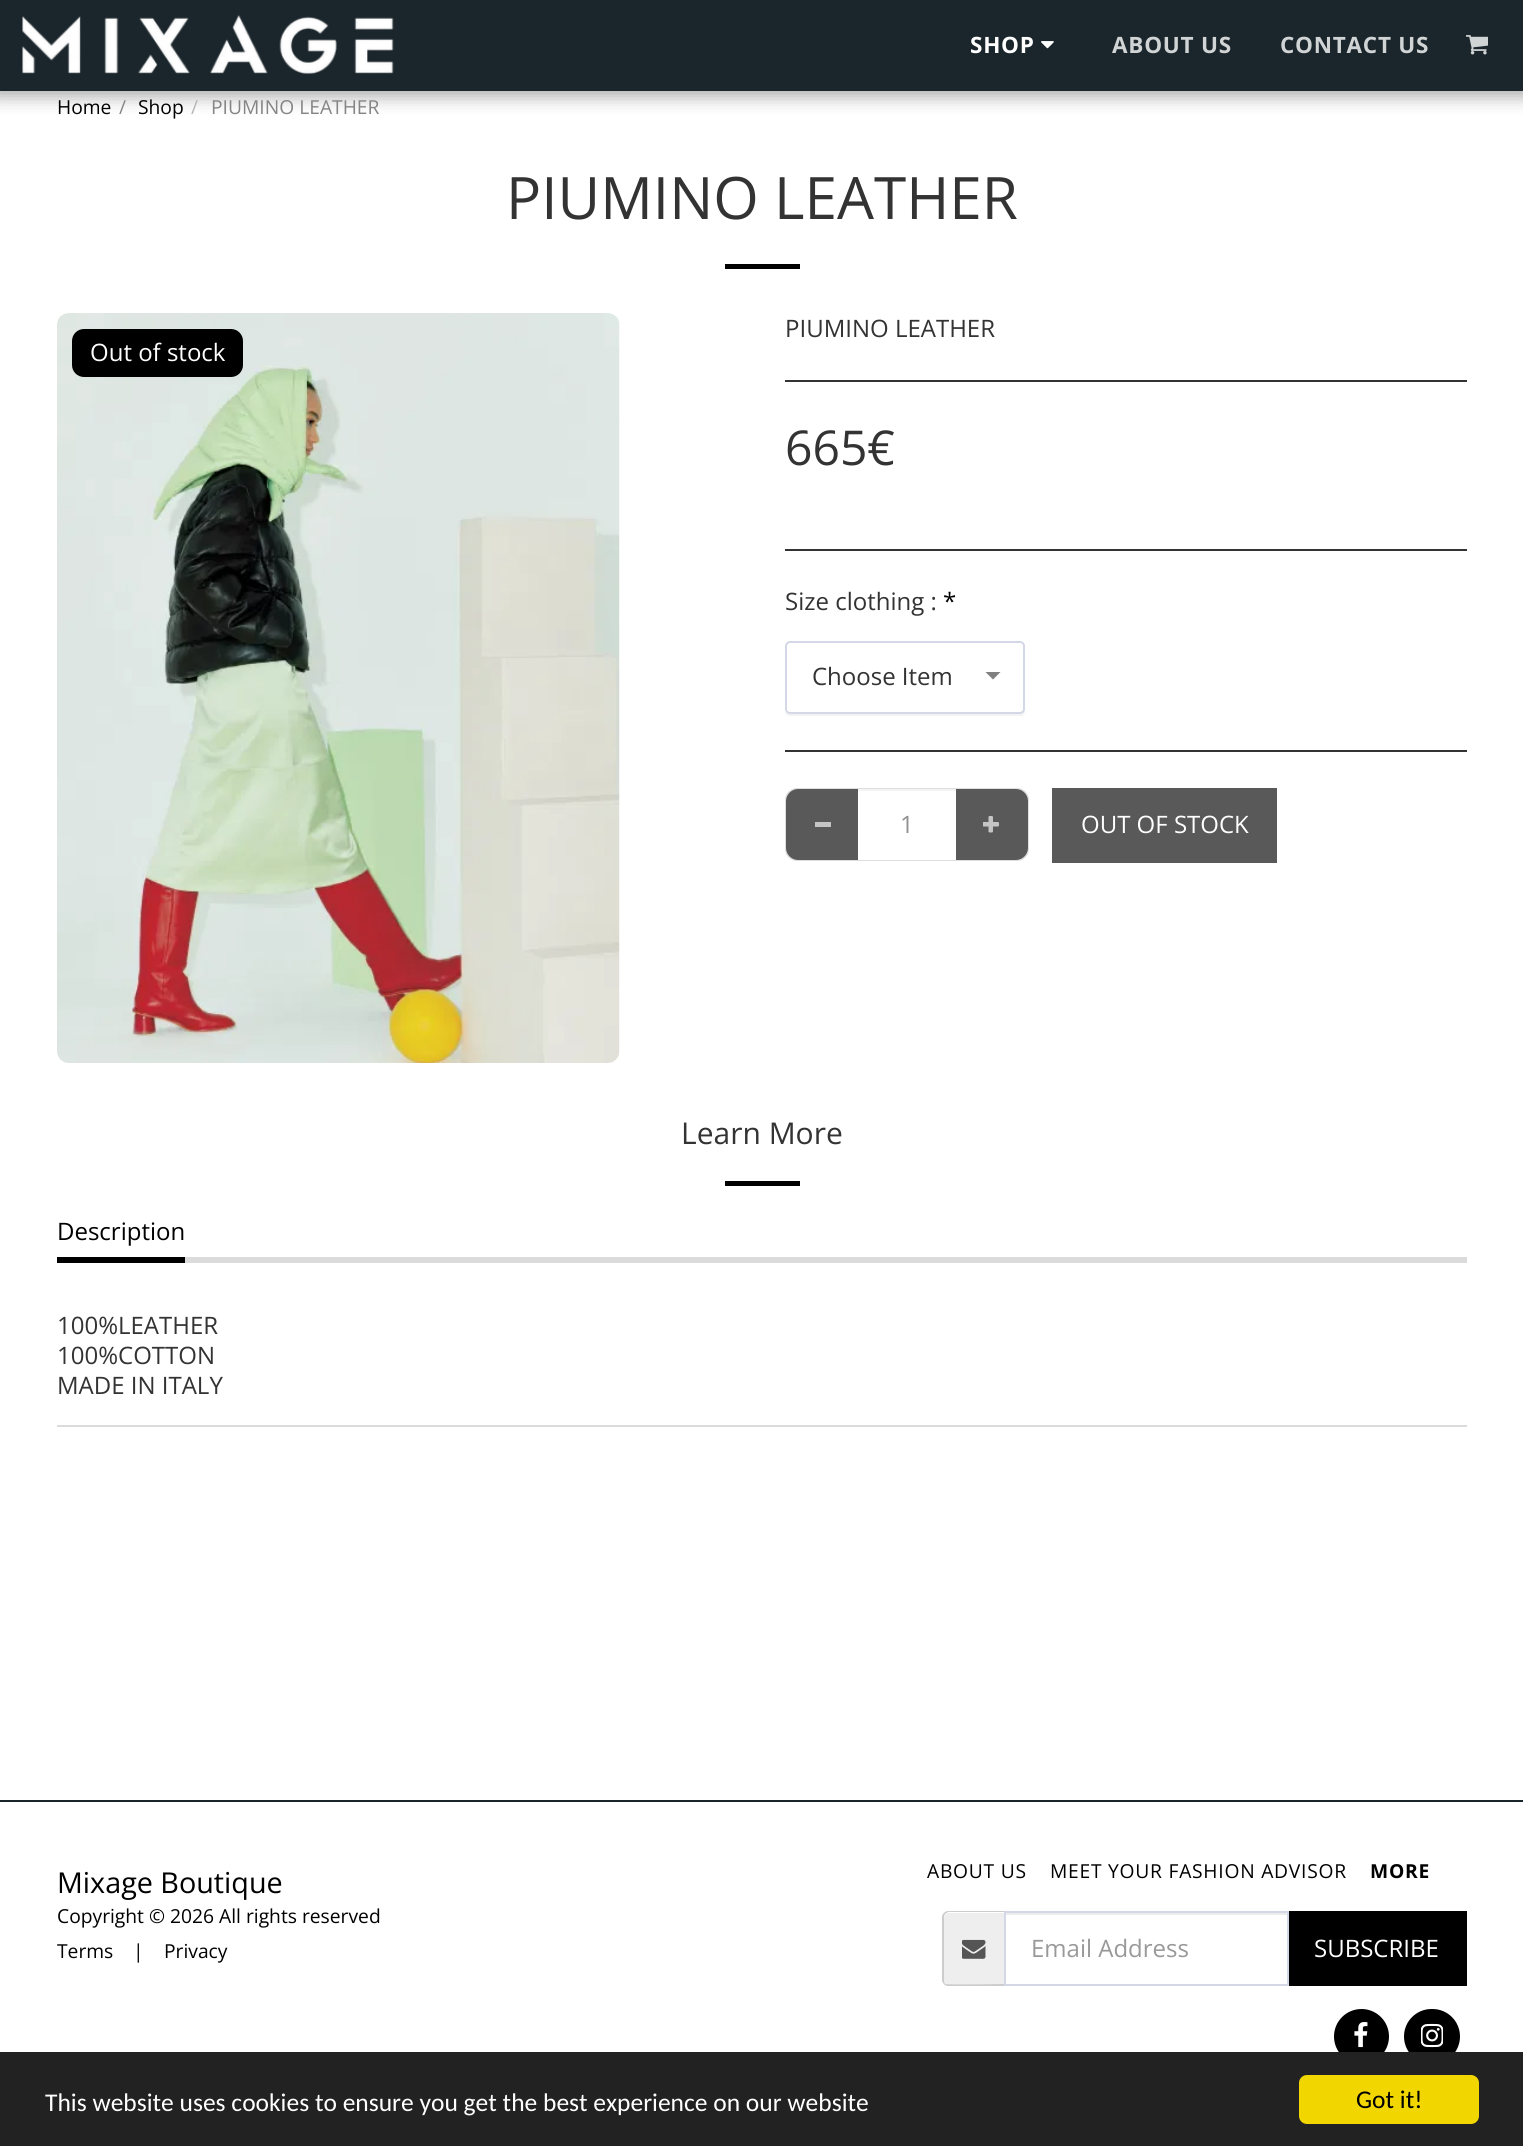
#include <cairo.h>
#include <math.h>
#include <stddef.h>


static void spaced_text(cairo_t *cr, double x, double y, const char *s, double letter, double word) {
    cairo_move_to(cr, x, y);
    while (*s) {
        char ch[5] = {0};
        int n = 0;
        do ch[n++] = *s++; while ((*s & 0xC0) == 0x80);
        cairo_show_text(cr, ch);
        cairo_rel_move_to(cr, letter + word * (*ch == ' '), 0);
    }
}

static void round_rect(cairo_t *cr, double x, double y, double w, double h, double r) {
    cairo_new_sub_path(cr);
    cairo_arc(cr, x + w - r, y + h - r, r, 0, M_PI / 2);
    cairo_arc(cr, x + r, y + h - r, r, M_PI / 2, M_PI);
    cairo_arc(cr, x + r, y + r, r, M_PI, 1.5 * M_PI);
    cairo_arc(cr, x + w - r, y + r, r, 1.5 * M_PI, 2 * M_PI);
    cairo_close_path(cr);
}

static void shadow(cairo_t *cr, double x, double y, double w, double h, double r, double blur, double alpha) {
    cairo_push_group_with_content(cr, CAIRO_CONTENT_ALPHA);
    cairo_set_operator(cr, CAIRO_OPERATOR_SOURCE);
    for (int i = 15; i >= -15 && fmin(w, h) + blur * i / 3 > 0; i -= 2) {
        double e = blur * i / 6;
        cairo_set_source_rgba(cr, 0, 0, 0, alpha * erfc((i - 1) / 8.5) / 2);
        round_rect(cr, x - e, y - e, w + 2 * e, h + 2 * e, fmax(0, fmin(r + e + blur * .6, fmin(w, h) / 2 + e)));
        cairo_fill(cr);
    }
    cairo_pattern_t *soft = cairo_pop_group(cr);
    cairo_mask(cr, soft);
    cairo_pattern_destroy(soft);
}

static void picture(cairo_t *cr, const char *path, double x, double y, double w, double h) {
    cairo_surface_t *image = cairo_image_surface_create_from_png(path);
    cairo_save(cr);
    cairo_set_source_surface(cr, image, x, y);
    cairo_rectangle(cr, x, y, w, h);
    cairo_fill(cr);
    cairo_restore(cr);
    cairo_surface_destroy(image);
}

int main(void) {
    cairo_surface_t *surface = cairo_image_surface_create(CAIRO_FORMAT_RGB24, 1523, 2146);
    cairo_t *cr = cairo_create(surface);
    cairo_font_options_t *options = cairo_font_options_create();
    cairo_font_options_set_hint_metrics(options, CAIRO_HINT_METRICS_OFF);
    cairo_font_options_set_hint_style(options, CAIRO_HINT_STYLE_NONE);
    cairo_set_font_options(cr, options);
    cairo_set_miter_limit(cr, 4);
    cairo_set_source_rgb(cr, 1, 1, 1);
    cairo_paint(cr);
    cairo_set_source_rgb(cr, 0, 0, 0);
    shadow(cr, -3, 0, 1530, 96, 0, 9, 0.35);
    cairo_set_source_rgb(cr, 0.106, 0.149, 0.173);
    cairo_rectangle(cr, 0, 0, 1523, 91);
    cairo_fill(cr);
    picture(cr, "img1.png", 22, 14, 372, 60);
    cairo_select_font_face(cr, "Open Sans", CAIRO_FONT_SLANT_NORMAL, CAIRO_FONT_WEIGHT_BOLD);
    cairo_set_font_size(cr, 22.5);
    cairo_set_source_rgb(cr, 1, 1, 1);
    spaced_text(cr, 970, 53, "SHOP", 0.75, 0);
    picture(cr, "img2.png", 1041, 41, 13, 8);
    cairo_set_source_rgb(cr, 0.82, 0.831, 0.835);
    spaced_text(cr, 1112, 53, "ABOUT US", 0.75, 0);
    spaced_text(cr, 1280, 53, "CONTACT US", 0.75, 0);
    picture(cr, "img3.png", 1466, 35, 22, 20);
    cairo_select_font_face(cr, "Open Sans", CAIRO_FONT_SLANT_NORMAL, CAIRO_FONT_WEIGHT_NORMAL);
    cairo_set_font_size(cr, 19.25);
    cairo_set_source_rgb(cr, 0, 0, 0);
    cairo_move_to(cr, 57, 114);
    cairo_show_text(cr, "Home");
    cairo_set_source_rgb(cr, 0.522, 0.522, 0.522);
    cairo_move_to(cr, 119, 114);
    cairo_show_text(cr, "/");
    cairo_set_source_rgb(cr, 0, 0, 0);
    cairo_move_to(cr, 138, 114);
    cairo_show_text(cr, "Shop");
    cairo_set_source_rgb(cr, 0.714, 0.714, 0.714);
    cairo_move_to(cr, 191, 114);
    cairo_show_text(cr, "/");
    cairo_set_source_rgb(cr, 0.522, 0.522, 0.522);
    cairo_move_to(cr, 211, 114);
    cairo_show_text(cr, "PIUMINO LEATHER");
    cairo_set_font_size(cr, 58.5);
    cairo_set_source_rgb(cr, 0.2, 0.2, 0.2);
    cairo_move_to(cr, 506, 219);
    cairo_show_text(cr, "PIUMINO LEATHER");
    cairo_set_source_rgb(cr, 0, 0, 0);
    cairo_rectangle(cr, 725, 264, 75, 5);
    cairo_fill(cr);
    picture(cr, "img4.png", 57, 313, 563, 750);
    round_rect(cr, 72, 329, 171, 48, 12);
    cairo_fill(cr);
    cairo_set_font_size(cr, 24);
    cairo_set_source_rgb(cr, 1, 1, 1);
    cairo_move_to(cr, 90, 361);
    cairo_show_text(cr, "Out of stock");
    cairo_set_source_rgb(cr, 0.2, 0.2, 0.2);
    cairo_move_to(cr, 785, 337);
    cairo_show_text(cr, "PIUMINO LEATHER");
    cairo_rectangle(cr, 785, 380, 682, 2);
    cairo_fill(cr);
    cairo_set_font_size(cr, 48);
    cairo_move_to(cr, 785, 465);
    cairo_show_text(cr, "665€");
    cairo_rectangle(cr, 785, 549, 682, 2);
    cairo_fill(cr);
    cairo_set_font_size(cr, 24);
    cairo_move_to(cr, 785, 610);
    cairo_show_text(cr, "Size clothing :");
    cairo_set_source_rgb(cr, 0, 0, 0);
    cairo_move_to(cr, 943, 610);
    cairo_show_text(cr, "*");
    cairo_set_source_rgba(cr, 0, 0, 0, 0.05);
    cairo_new_path(cr);
    cairo_move_to(cr, 785, 712);
    cairo_curve_to(cr, 785, 714, 787, 716, 790, 716);
    cairo_line_to(cr, 1020, 716);
    cairo_curve_to(cr, 1023, 716, 1025, 714, 1025, 711);
    cairo_line_to(cr, 1025, 647);
    cairo_line_to(cr, 1024, 645);
    cairo_line_to(cr, 1024, 710);
    cairo_curve_to(cr, 1024, 712, 1022, 714, 1020, 714);
    cairo_line_to(cr, 789, 714);
    cairo_curve_to(cr, 787, 714, 786, 713, 785, 712);
    cairo_close_path(cr);
    cairo_fill(cr);
    cairo_set_source_rgb(cr, 1, 1, 1);
    round_rect(cr, 786, 642, 238, 71, 4);
    cairo_fill_preserve(cr);
    cairo_set_source_rgb(cr, 0.831, 0.843, 0.898);
    cairo_stroke(cr);
    cairo_set_source_rgb(cr, 0.2, 0.2, 0.2);
    cairo_move_to(cr, 812, 685);
    cairo_show_text(cr, "Choose Item");
    cairo_set_source_rgb(cr, 0.502, 0.502, 0.502);
    cairo_new_path(cr);
    cairo_move_to(cr, 985.5, 672);
    cairo_line_to(cr, 1000.5, 672);
    cairo_line_to(cr, 993, 679.5);
    cairo_close_path(cr);
    cairo_fill(cr);
    cairo_set_source_rgb(cr, 0.2, 0.2, 0.2);
    cairo_rectangle(cr, 785, 750, 682, 2);
    cairo_fill(cr);
    round_rect(cr, 786, 789, 242, 71, 11);
    cairo_set_source_rgb(cr, 0.871, 0.871, 0.871);
    cairo_stroke(cr);
    cairo_set_source_rgb(cr, 0.349, 0.349, 0.349);
    cairo_new_path(cr);
    cairo_move_to(cr, 798, 789);
    cairo_line_to(cr, 860, 789);
    cairo_line_to(cr, 860, 860);
    cairo_line_to(cr, 798, 860);
    cairo_curve_to(cr, 791.5, 860, 786, 854.5, 786, 848);
    cairo_line_to(cr, 786, 801);
    cairo_curve_to(cr, 786, 794.5, 791.5, 789, 798, 789);
    cairo_close_path(cr);
    cairo_fill(cr);
    cairo_set_source_rgb(cr, 0.773, 0.773, 0.773);
    cairo_rectangle(cr, 815, 822, 16, 5);
    cairo_fill(cr);
    cairo_set_source_rgb(cr, 0.349, 0.349, 0.349);
    cairo_new_path(cr);
    cairo_move_to(cr, 954, 789);
    cairo_line_to(cr, 1016, 789);
    cairo_curve_to(cr, 1022.5, 789, 1028, 794.5, 1028, 801);
    cairo_line_to(cr, 1028, 848);
    cairo_curve_to(cr, 1028, 854.5, 1022.5, 860, 1016, 860);
    cairo_line_to(cr, 954, 860);
    cairo_close_path(cr);
    cairo_fill(cr);
    cairo_set_source_rgb(cr, 1, 1, 1);
    cairo_rectangle(cr, 858, 791, 98, 69);
    cairo_fill(cr);
    cairo_set_source_rgb(cr, 0.953, 0.953, 0.953);
    cairo_rectangle(cr, 858, 789, 98, 2);
    cairo_fill(cr);
    cairo_set_source_rgb(cr, 0.569, 0.569, 0.569);
    cairo_move_to(cr, 900, 833);
    cairo_show_text(cr, "1");
    picture(cr, "img5.png", 983, 816, 16, 17);
    cairo_set_source_rgb(cr, 0.349, 0.349, 0.349);
    cairo_rectangle(cr, 1052, 788, 225, 75);
    cairo_fill(cr);
    cairo_set_source_rgb(cr, 1, 1, 1);
    cairo_move_to(cr, 1081, 833);
    cairo_show_text(cr, "OUT OF STOCK");
    cairo_set_font_size(cr, 30);
    cairo_set_source_rgb(cr, 0.2, 0.2, 0.2);
    cairo_move_to(cr, 681, 1144);
    cairo_show_text(cr, "Learn More");
    cairo_set_source_rgb(cr, 0, 0, 0);
    cairo_rectangle(cr, 725, 1181, 75, 5);
    cairo_fill(cr);
    cairo_set_source_rgb(cr, 0.859, 0.859, 0.859);
    cairo_rectangle(cr, 185, 1257, 1282, 6);
    cairo_fill(cr);
    cairo_set_source_rgb(cr, 0, 0, 0);
    cairo_rectangle(cr, 57, 1257, 128, 6);
    cairo_fill(cr);
    cairo_set_font_size(cr, 24);
    cairo_move_to(cr, 57, 1240);
    cairo_show_text(cr, "Description");
    cairo_set_source_rgb(cr, 0.859, 0.859, 0.859);
    cairo_rectangle(cr, 57, 1425, 1410, 2);
    cairo_fill(cr);
    cairo_set_source_rgb(cr, 0.2, 0.2, 0.2);
    cairo_move_to(cr, 57, 1334);
    cairo_show_text(cr, "100%LEATHER");
    cairo_move_to(cr, 57, 1364);
    cairo_show_text(cr, "100%COTTON");
    cairo_move_to(cr, 57, 1394);
    cairo_show_text(cr, "MADE IN ITALY");
    cairo_set_source_rgb(cr, 0.106, 0.149, 0.173);
    cairo_rectangle(cr, 0, 1800, 1523, 2);
    cairo_fill(cr);
    cairo_set_font_size(cr, 28.75);
    cairo_set_source_rgb(cr, 0, 0, 0);
    cairo_move_to(cr, 57, 1893);
    cairo_show_text(cr, "Mixage Boutique");
    cairo_set_font_size(cr, 19.25);
    cairo_move_to(cr, 57, 1923);
    cairo_show_text(cr, "Copyright © 2026 All rights reserved");
    cairo_move_to(cr, 57, 1958);
    cairo_show_text(cr, "Terms");
    cairo_move_to(cr, 133, 1958);
    cairo_show_text(cr, "|");
    cairo_move_to(cr, 164, 1958);
    cairo_show_text(cr, "Privacy");
    spaced_text(cr, 927, 1878, "ABOUT US", 0.75, 0);
    spaced_text(cr, 1050, 1878, "MEET YOUR FASHION ADVISOR", 0.75, 0);
    cairo_select_font_face(cr, "Open Sans", CAIRO_FONT_SLANT_NORMAL, CAIRO_FONT_WEIGHT_BOLD);
    spaced_text(cr, 1370, 1878, "MORE", 0.75, 0);
    cairo_set_source_rgb(cr, 0.933, 0.933, 0.933);
    cairo_new_path(cr);
    cairo_move_to(cr, 949, 1913);
    cairo_line_to(cr, 1004, 1913);
    cairo_line_to(cr, 1004, 1985);
    cairo_line_to(cr, 949, 1985);
    cairo_curve_to(cr, 946, 1985, 944, 1983, 944, 1980);
    cairo_line_to(cr, 944, 1918);
    cairo_curve_to(cr, 944, 1915, 946, 1913, 949, 1913);
    cairo_close_path(cr);
    cairo_fill(cr);
    cairo_set_source_rgb(cr, 0.8, 0.8, 0.8);
    cairo_set_fill_rule(cr, CAIRO_FILL_RULE_EVEN_ODD);
    cairo_new_path(cr);
    cairo_move_to(cr, 948, 1911);
    cairo_line_to(cr, 1004, 1911);
    cairo_line_to(cr, 1004, 1986);
    cairo_line_to(cr, 948, 1986);
    cairo_curve_to(cr, 945, 1986, 942, 1983, 942, 1980);
    cairo_line_to(cr, 942, 1917);
    cairo_curve_to(cr, 942, 1914, 945, 1911, 948, 1911);
    cairo_close_path(cr);
    cairo_move_to(cr, 948, 1912);
    cairo_line_to(cr, 1004, 1912);
    cairo_line_to(cr, 1004, 1984);
    cairo_curve_to(cr, 996, 1984, 948, 1985, 945, 1984);
    cairo_line_to(cr, 944, 1981);
    cairo_line_to(cr, 944, 1916);
    cairo_line_to(cr, 945, 1914);
    cairo_close_path(cr);
    cairo_fill(cr);
    picture(cr, "img6.png", 962, 1939, 24, 20);
    cairo_set_source_rgb(cr, 0.925, 0.925, 0.925);
    cairo_rectangle(cr, 1005, 1913, 282, 2);
    cairo_fill(cr);
    cairo_rectangle(cr, 1005, 1912, 283, 73);
    cairo_set_source_rgb(cr, 0.831, 0.843, 0.898);
    cairo_stroke(cr);
    cairo_select_font_face(cr, "Open Sans", CAIRO_FONT_SLANT_NORMAL, CAIRO_FONT_WEIGHT_NORMAL);
    cairo_set_font_size(cr, 24);
    cairo_set_source_rgb(cr, 0.6, 0.6, 0.6);
    cairo_move_to(cr, 1031, 1957);
    cairo_show_text(cr, "Email Address");
    cairo_set_source_rgb(cr, 0, 0, 0);
    cairo_rectangle(cr, 1289, 1911, 178, 75);
    cairo_fill(cr);
    cairo_set_source_rgb(cr, 1, 1, 1);
    cairo_move_to(cr, 1314, 1957);
    cairo_show_text(cr, "SUBSCRIBE");
    cairo_set_source_rgb(cr, 0, 0, 0);
    cairo_new_path(cr);
    cairo_arc(cr, 1361.5, 2036.5, 26.5, 0, 2 * M_PI);
    cairo_fill_preserve(cr);
    cairo_stroke(cr);
    picture(cr, "img7.png", 1354, 2022, 14, 26);
    round_rect(cr, 1405, 2010, 54, 53, 26.5);
    cairo_fill_preserve(cr);
    cairo_stroke(cr);
    picture(cr, "img8.png", 1421, 2023, 22, 25);
    cairo_set_source_rgb(cr, 0.133, 0.133, 0.133);
    cairo_rectangle(cr, 0, 2052, 1523, 94);
    cairo_fill(cr);
    cairo_select_font_face(cr, "Carlito", CAIRO_FONT_SLANT_NORMAL, CAIRO_FONT_WEIGHT_NORMAL);
    cairo_set_font_size(cr, 25.5);
    cairo_set_source_rgb(cr, 1, 1, 1);
    cairo_move_to(cr, 45, 2111);
    cairo_show_text(cr, "This website uses cookies to ensure you get the best experience on our website");
    cairo_set_source_rgb(cr, 0.945, 0.839, 0);
    round_rect(cr, 1299, 2075, 180, 49, 8);
    cairo_fill(cr);
    cairo_set_source_rgb(cr, 0, 0, 0);
    cairo_move_to(cr, 1356, 2108);
    cairo_show_text(cr, "Got it!");
    cairo_surface_write_to_png(surface, "page.png");
    cairo_font_options_destroy(options);
    cairo_destroy(cr);
    cairo_surface_destroy(surface);
    return 0;
}
